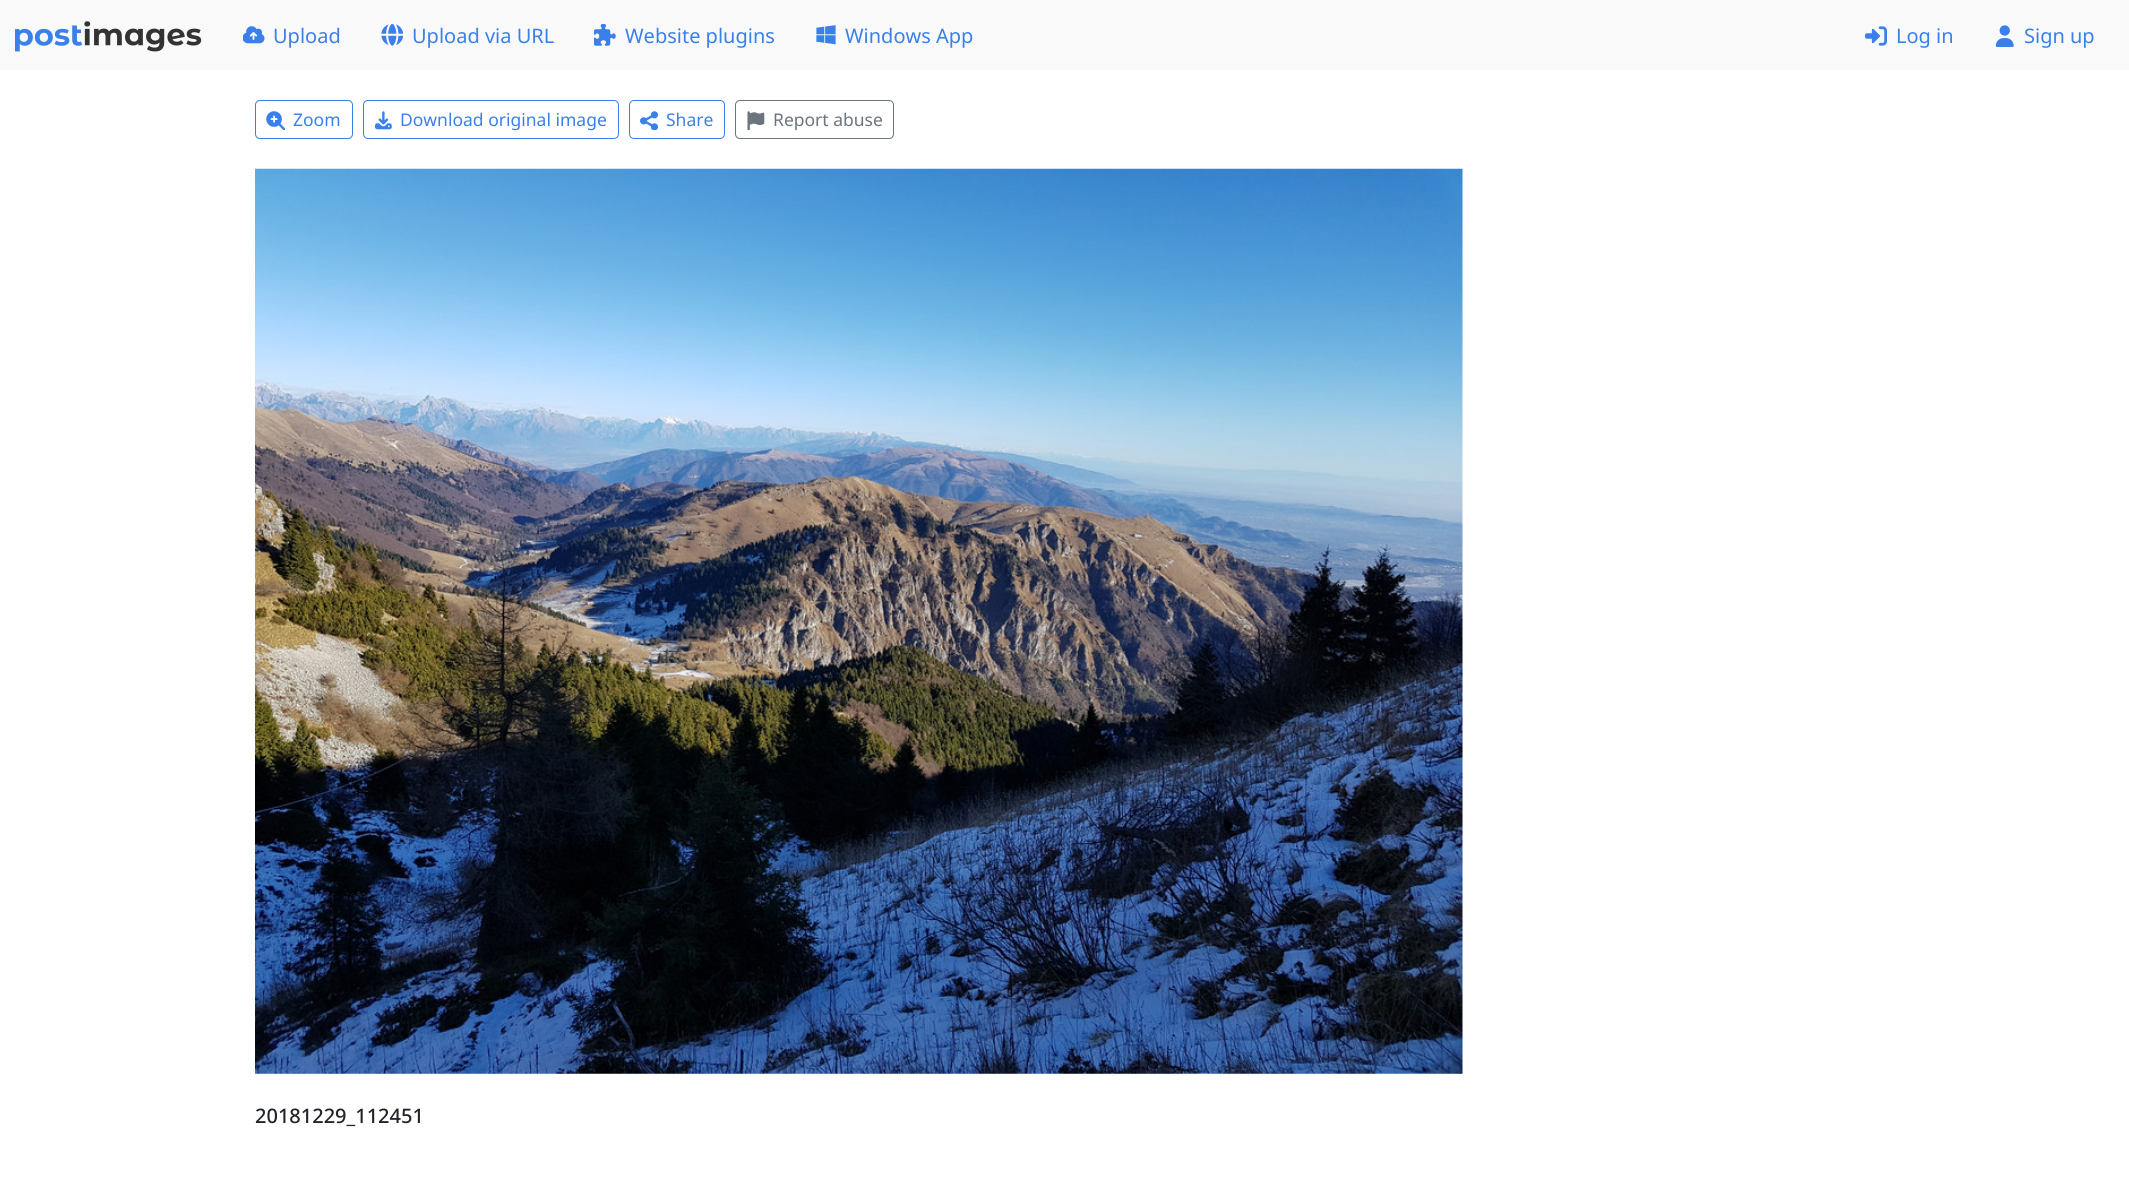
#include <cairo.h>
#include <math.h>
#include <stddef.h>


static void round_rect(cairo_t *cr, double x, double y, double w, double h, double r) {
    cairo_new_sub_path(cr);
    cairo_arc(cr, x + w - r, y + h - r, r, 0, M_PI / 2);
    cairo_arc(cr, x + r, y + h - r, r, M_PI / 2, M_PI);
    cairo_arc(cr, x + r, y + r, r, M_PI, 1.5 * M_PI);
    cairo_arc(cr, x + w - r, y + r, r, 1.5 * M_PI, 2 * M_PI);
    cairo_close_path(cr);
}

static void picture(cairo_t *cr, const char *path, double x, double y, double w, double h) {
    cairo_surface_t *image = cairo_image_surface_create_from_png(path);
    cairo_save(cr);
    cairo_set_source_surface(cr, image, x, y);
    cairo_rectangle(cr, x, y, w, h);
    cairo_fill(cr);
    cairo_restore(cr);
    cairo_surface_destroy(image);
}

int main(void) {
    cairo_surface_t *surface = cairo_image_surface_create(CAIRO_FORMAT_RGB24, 2129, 1198);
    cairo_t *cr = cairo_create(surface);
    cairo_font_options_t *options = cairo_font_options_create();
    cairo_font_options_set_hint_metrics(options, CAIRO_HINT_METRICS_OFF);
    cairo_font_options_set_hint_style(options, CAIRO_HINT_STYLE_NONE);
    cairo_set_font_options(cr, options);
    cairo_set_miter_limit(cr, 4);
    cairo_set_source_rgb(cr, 1, 1, 1);
    cairo_paint(cr);
    cairo_set_source_rgb(cr, 0.973, 0.976, 0.98);
    cairo_rectangle(cr, 0, 0, 2129, 70);
    cairo_fill(cr);
    picture(cr, "img1.png", 15, 21, 187, 31);
    picture(cr, "img2.png", 243, 26, 22, 18);
    cairo_select_font_face(cr, "Noto Sans", CAIRO_FONT_SLANT_NORMAL, CAIRO_FONT_WEIGHT_NORMAL);
    cairo_set_font_size(cr, 20);
    cairo_set_source_rgb(cr, 0.227, 0.502, 0.918);
    cairo_move_to(cr, 273, 43);
    cairo_show_text(cr, "Upload");
    picture(cr, "img3.png", 381, 24, 22, 22);
    cairo_move_to(cr, 412, 43);
    cairo_show_text(cr, "Upload via URL");
    picture(cr, "img4.png", 594, 24, 22, 22);
    cairo_move_to(cr, 625, 43);
    cairo_show_text(cr, "Website plugins");
    picture(cr, "img5.png", 816, 25, 20, 20);
    cairo_move_to(cr, 845, 43);
    cairo_show_text(cr, "Windows App");
    picture(cr, "img6.png", 1865, 26, 22, 20);
    cairo_move_to(cr, 1896, 43);
    cairo_show_text(cr, "Log in");
    picture(cr, "img7.png", 1995, 25, 19, 22);
    cairo_move_to(cr, 2024, 43);
    cairo_show_text(cr, "Sign up");
    round_rect(cr, 255.5, 100.5, 97, 38, 4.5);
    cairo_set_line_width(cr, 1);
    cairo_stroke(cr);
    picture(cr, "img8.png", 266, 111, 19, 19);
    cairo_set_font_size(cr, 17.5);
    cairo_move_to(cr, 293, 126);
    cairo_show_text(cr, "Zoom");
    round_rect(cr, 363.5, 100.5, 255, 38, 4.5);
    cairo_stroke(cr);
    picture(cr, "img9.png", 374, 111, 18, 19);
    cairo_move_to(cr, 400, 126);
    cairo_show_text(cr, "Download original image");
    round_rect(cr, 629.5, 100.5, 95, 38, 4.5);
    cairo_stroke(cr);
    picture(cr, "img10.png", 640, 111, 18, 19);
    cairo_move_to(cr, 666, 126);
    cairo_show_text(cr, "Share");
    round_rect(cr, 735.5, 100.5, 158, 38, 4.5);
    cairo_set_source_rgb(cr, 0.424, 0.459, 0.49);
    cairo_stroke(cr);
    picture(cr, "img11.png", 747, 111, 18, 19);
    cairo_move_to(cr, 773, 126);
    cairo_show_text(cr, "Report abuse");
    picture(cr, "img12.png", 255, 168, 1208, 906);
    cairo_select_font_face(cr, "Noto Sans Medium", CAIRO_FONT_SLANT_NORMAL, CAIRO_FONT_WEIGHT_NORMAL);
    cairo_set_font_size(cr, 20);
    cairo_set_source_rgb(cr, 0.129, 0.145, 0.161);
    cairo_move_to(cr, 255, 1123);
    cairo_show_text(cr, "20181229_112451");
    cairo_surface_write_to_png(surface, "page.png");
    cairo_font_options_destroy(options);
    cairo_destroy(cr);
    cairo_surface_destroy(surface);
    return 0;
}
